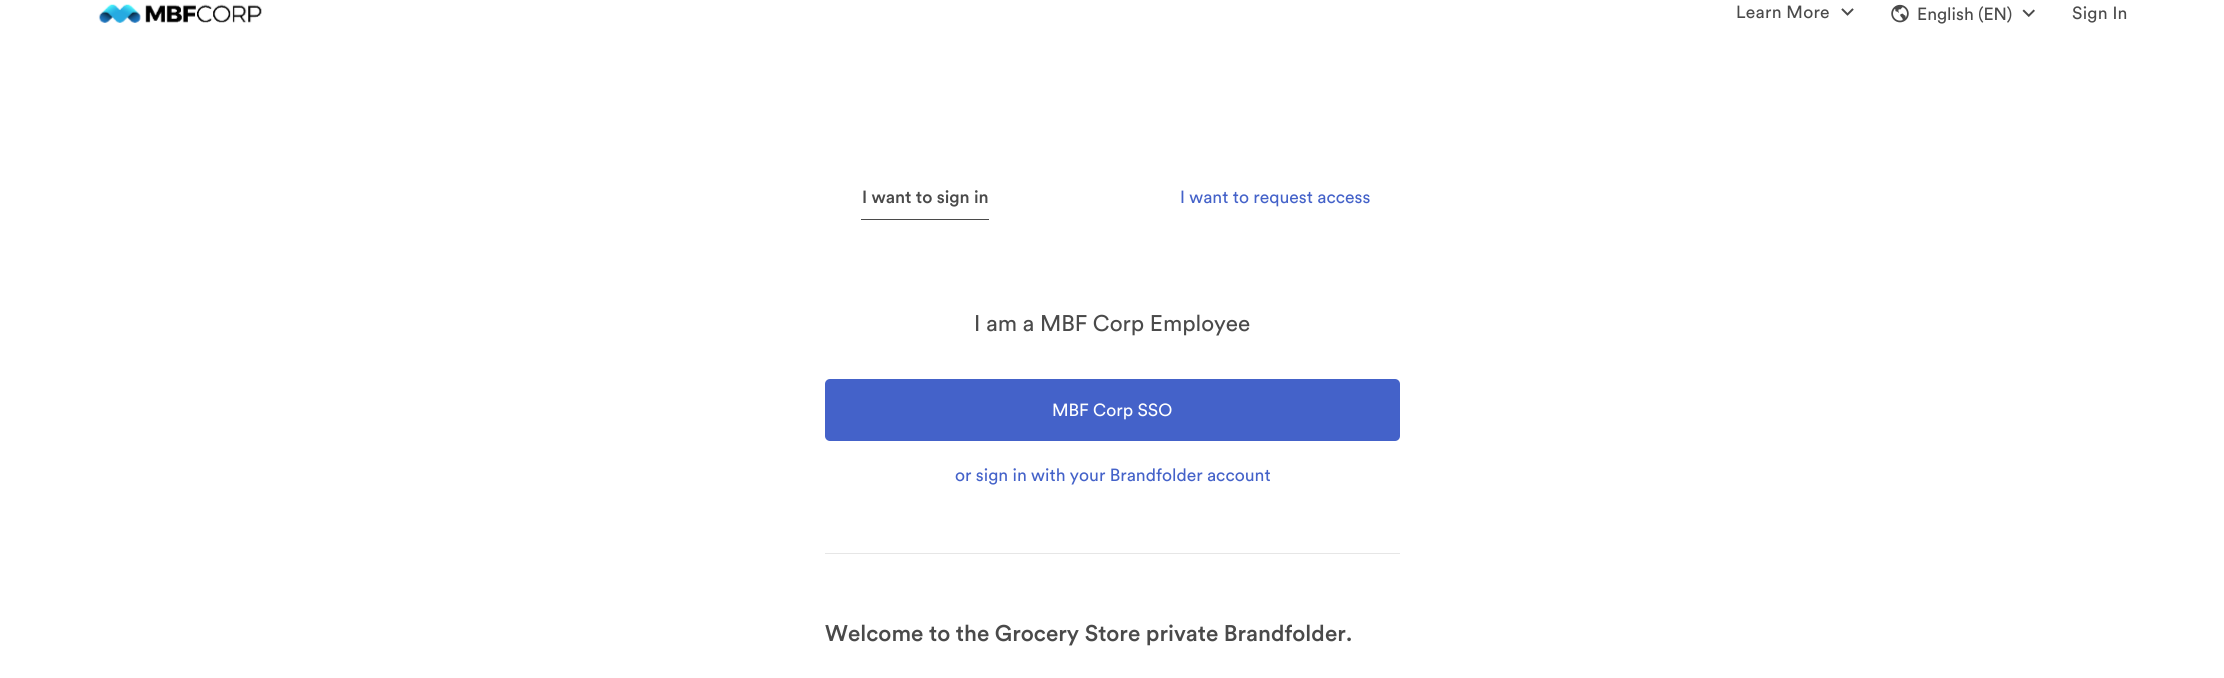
#include <cairo.h>
#include <math.h>
#include <stddef.h>


static void spaced_text(cairo_t *cr, double x, double y, const char *s, double letter, double word) {
    cairo_move_to(cr, x, y);
    while (*s) {
        char ch[5] = {0};
        int n = 0;
        do ch[n++] = *s++; while ((*s & 0xC0) == 0x80);
        cairo_show_text(cr, ch);
        cairo_rel_move_to(cr, letter + word * (*ch == ' '), 0);
    }
}

static void round_rect(cairo_t *cr, double x, double y, double w, double h, double r) {
    cairo_new_sub_path(cr);
    cairo_arc(cr, x + w - r, y + h - r, r, 0, M_PI / 2);
    cairo_arc(cr, x + r, y + h - r, r, M_PI / 2, M_PI);
    cairo_arc(cr, x + r, y + r, r, M_PI, 1.5 * M_PI);
    cairo_arc(cr, x + w - r, y + r, r, 1.5 * M_PI, 2 * M_PI);
    cairo_close_path(cr);
}

static void picture(cairo_t *cr, const char *path, double x, double y, double w, double h) {
    cairo_surface_t *image = cairo_image_surface_create_from_png(path);
    cairo_save(cr);
    cairo_set_source_surface(cr, image, x, y);
    cairo_rectangle(cr, x, y, w, h);
    cairo_fill(cr);
    cairo_restore(cr);
    cairo_surface_destroy(image);
}

int main(void) {
    cairo_surface_t *surface = cairo_image_surface_create(CAIRO_FORMAT_RGB24, 2224, 678);
    cairo_t *cr = cairo_create(surface);
    cairo_font_options_t *options = cairo_font_options_create();
    cairo_font_options_set_hint_metrics(options, CAIRO_HINT_METRICS_OFF);
    cairo_font_options_set_hint_style(options, CAIRO_HINT_STYLE_NONE);
    cairo_set_font_options(cr, options);
    cairo_set_miter_limit(cr, 4);
    cairo_set_source_rgb(cr, 1, 1, 1);
    cairo_paint(cr);
    picture(cr, "img1.png", 98, 4, 164, 19);
    cairo_select_font_face(cr, "Circular", CAIRO_FONT_SLANT_NORMAL, CAIRO_FONT_WEIGHT_NORMAL);
    cairo_set_font_size(cr, 17.5);
    cairo_set_source_rgb(cr, 0.29, 0.29, 0.29);
    spaced_text(cr, 1736, 18, "Learn More", 0.25, 0);
    picture(cr, "img2.png", 1841, 8, 13, 8);
    picture(cr, "img3.png", 1891, 4, 18, 19);
    cairo_move_to(cr, 1917, 20);
    cairo_show_text(cr, "English (EN)");
    picture(cr, "img4.png", 2022, 9, 13, 8);
    spaced_text(cr, 2072, 19, "Sign In", 0.25, 0);
    cairo_select_font_face(cr, "Circular Medium", CAIRO_FONT_SLANT_NORMAL, CAIRO_FONT_WEIGHT_NORMAL);
    cairo_move_to(cr, 862, 203);
    cairo_show_text(cr, "I want to sign in");
    cairo_rectangle(cr, 861, 219, 128, 1);
    cairo_fill(cr);
    cairo_select_font_face(cr, "Circular", CAIRO_FONT_SLANT_NORMAL, CAIRO_FONT_WEIGHT_NORMAL);
    cairo_set_source_rgb(cr, 0.267, 0.384, 0.788);
    cairo_move_to(cr, 1180, 203);
    cairo_show_text(cr, "I want to request access");
    cairo_set_font_size(cr, 22.5);
    cairo_set_source_rgb(cr, 0.29, 0.29, 0.29);
    cairo_move_to(cr, 974, 331);
    cairo_show_text(cr, "I am a MBF Corp Employee");
    cairo_set_source_rgb(cr, 0.267, 0.384, 0.788);
    round_rect(cr, 825, 379, 575, 62, 5);
    cairo_fill(cr);
    cairo_set_font_size(cr, 17.5);
    cairo_set_source_rgb(cr, 1, 1, 1);
    cairo_move_to(cr, 1052, 416);
    cairo_show_text(cr, "MBF Corp SSO");
    cairo_set_source_rgb(cr, 0.267, 0.384, 0.788);
    cairo_move_to(cr, 955, 481);
    cairo_show_text(cr, "or sign in with your Brandfolder account");
    cairo_set_source_rgb(cr, 0.902, 0.902, 0.902);
    cairo_rectangle(cr, 825, 553, 575, 1);
    cairo_fill(cr);
    cairo_select_font_face(cr, "Circular Medium", CAIRO_FONT_SLANT_NORMAL, CAIRO_FONT_WEIGHT_NORMAL);
    cairo_set_font_size(cr, 22.5);
    cairo_set_source_rgb(cr, 0.29, 0.29, 0.29);
    cairo_move_to(cr, 825, 641);
    cairo_show_text(cr, "Welcome to the Grocery Store private Brandfolder.");
    cairo_surface_write_to_png(surface, "page.png");
    cairo_font_options_destroy(options);
    cairo_destroy(cr);
    cairo_surface_destroy(surface);
    return 0;
}
